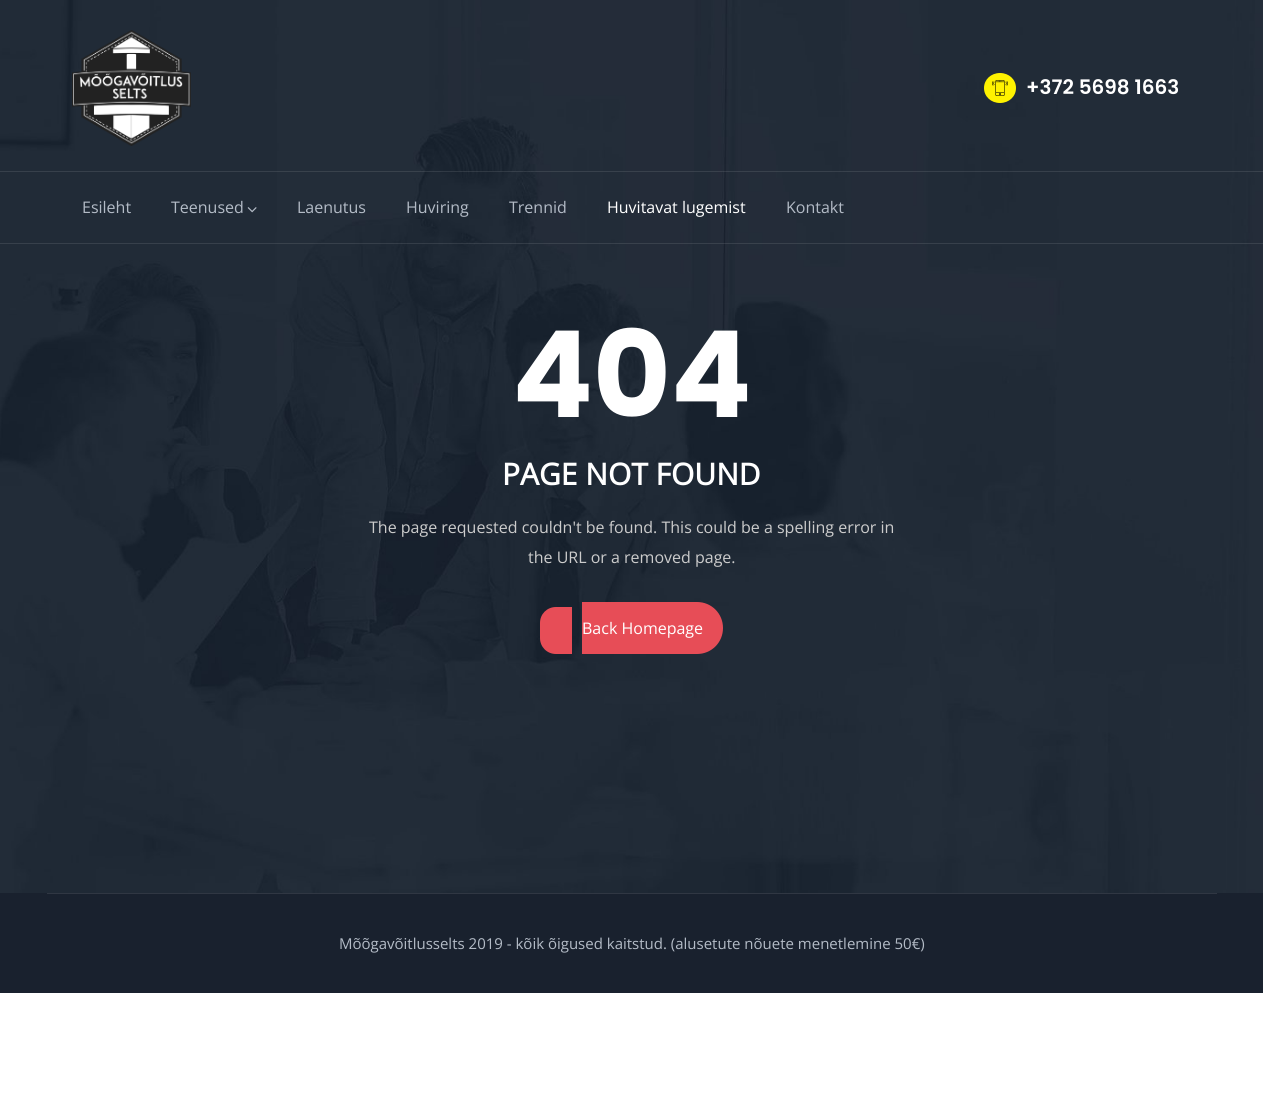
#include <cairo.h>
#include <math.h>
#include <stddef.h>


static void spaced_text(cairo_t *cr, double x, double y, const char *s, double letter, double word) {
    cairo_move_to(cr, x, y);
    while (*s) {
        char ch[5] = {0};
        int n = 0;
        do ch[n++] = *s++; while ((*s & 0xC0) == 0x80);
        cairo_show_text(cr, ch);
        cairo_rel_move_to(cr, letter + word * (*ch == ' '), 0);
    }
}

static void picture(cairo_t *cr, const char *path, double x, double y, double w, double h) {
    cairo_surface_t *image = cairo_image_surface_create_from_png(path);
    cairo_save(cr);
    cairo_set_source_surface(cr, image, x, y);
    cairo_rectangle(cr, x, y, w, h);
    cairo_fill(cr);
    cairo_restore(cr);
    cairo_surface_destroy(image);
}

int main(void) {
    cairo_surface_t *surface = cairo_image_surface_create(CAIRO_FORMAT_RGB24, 1263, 1119);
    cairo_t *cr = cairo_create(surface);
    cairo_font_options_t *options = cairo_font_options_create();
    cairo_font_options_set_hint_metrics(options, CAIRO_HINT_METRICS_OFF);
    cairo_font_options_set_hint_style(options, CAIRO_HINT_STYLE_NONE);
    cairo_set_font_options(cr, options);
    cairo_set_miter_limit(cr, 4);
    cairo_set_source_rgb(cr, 1, 1, 1);
    cairo_paint(cr);
    picture(cr, "img4.png", 0, 0, 1263, 893);
    picture(cr, "img1.png", 72, 30, 119, 116);
    cairo_set_source_rgb(cr, 1, 0.949, 0);
    cairo_new_path(cr);
    cairo_move_to(cr, 1000, 73);
    cairo_curve_to(cr, 1009, 73, 1016, 79.5, 1016, 88);
    cairo_curve_to(cr, 1016, 96.5, 1009, 103, 1000, 103);
    cairo_curve_to(cr, 991, 103, 984, 96.5, 984, 88);
    cairo_curve_to(cr, 984, 79.5, 991, 73, 1000, 73);
    cairo_close_path(cr);
    cairo_fill(cr);
    picture(cr, "img2.png", 992, 80, 16, 16);
    cairo_select_font_face(cr, "Poppins SemiBold", CAIRO_FONT_SLANT_NORMAL, CAIRO_FONT_WEIGHT_NORMAL);
    cairo_set_font_size(cr, 20);
    cairo_set_source_rgb(cr, 1, 1, 1);
    cairo_move_to(cr, 1026, 94);
    cairo_show_text(cr, "+372 5698 1663");
    cairo_set_source_rgba(cr, 1, 1, 1, 0.1);
    cairo_rectangle(cr, 0, 171, 1263, 1);
    cairo_fill(cr);
    cairo_rectangle(cr, 0, 243, 1263, 1);
    cairo_fill(cr);
    cairo_select_font_face(cr, "Open Sans", CAIRO_FONT_SLANT_NORMAL, CAIRO_FONT_WEIGHT_NORMAL);
    cairo_set_font_size(cr, 16);
    cairo_set_source_rgb(cr, 0.702, 0.733, 0.776);
    cairo_move_to(cr, 82, 213);
    cairo_show_text(cr, "Esileht");
    cairo_move_to(cr, 171, 213);
    cairo_show_text(cr, "Teenused");
    picture(cr, "img3.png", 247, 207, 10, 6);
    cairo_move_to(cr, 297, 213);
    cairo_show_text(cr, "Laenutus");
    cairo_move_to(cr, 406, 213);
    cairo_show_text(cr, "Huviring");
    cairo_move_to(cr, 509, 213);
    cairo_show_text(cr, "Trennid");
    cairo_set_source_rgb(cr, 1, 1, 1);
    cairo_move_to(cr, 607, 213);
    cairo_show_text(cr, "Huvitavat lugemist");
    cairo_set_source_rgb(cr, 0.702, 0.733, 0.776);
    cairo_move_to(cr, 786, 213);
    cairo_show_text(cr, "Kontakt");
    cairo_select_font_face(cr, "Poppins", CAIRO_FONT_SLANT_NORMAL, CAIRO_FONT_WEIGHT_BOLD);
    cairo_set_font_size(cr, 120);
    cairo_set_source_rgb(cr, 1, 1, 1);
    spaced_text(cr, 512, 417, "404", -0.5, 0);
    cairo_select_font_face(cr, "Open Sans", CAIRO_FONT_SLANT_NORMAL, CAIRO_FONT_WEIGHT_BOLD);
    cairo_set_font_size(cr, 30);
    cairo_move_to(cr, 502, 485);
    cairo_show_text(cr, "PAGE NOT FOUND");
    cairo_select_font_face(cr, "Open Sans", CAIRO_FONT_SLANT_NORMAL, CAIRO_FONT_WEIGHT_NORMAL);
    cairo_set_font_size(cr, 16);
    cairo_set_source_rgb(cr, 0.8, 0.8, 0.8);
    cairo_move_to(cr, 369, 533);
    cairo_show_text(cr, "The page requested couldn't be found. This could be a spelling error in");
    cairo_move_to(cr, 528, 563);
    cairo_show_text(cr, "the URL or a removed page.");
    cairo_set_source_rgb(cr, 0.906, 0.302, 0.341);
    cairo_new_path(cr);
    cairo_move_to(cr, 582, 602);
    cairo_line_to(cr, 697, 602);
    cairo_curve_to(cr, 711.5, 602, 723, 613.5, 723, 628);
    cairo_curve_to(cr, 723, 642.5, 711.5, 654, 697, 654);
    cairo_line_to(cr, 582, 654);
    cairo_close_path(cr);
    cairo_fill(cr);
    cairo_set_source_rgb(cr, 1, 1, 1);
    cairo_move_to(cr, 582, 634);
    cairo_show_text(cr, "Back Homepage");
    cairo_set_source_rgb(cr, 0.906, 0.302, 0.341);
    cairo_new_path(cr);
    cairo_move_to(cr, 556, 607);
    cairo_line_to(cr, 572, 607);
    cairo_line_to(cr, 572, 654);
    cairo_line_to(cr, 556, 654);
    cairo_curve_to(cr, 547, 654, 540, 647, 540, 638);
    cairo_line_to(cr, 540, 623);
    cairo_curve_to(cr, 540, 614, 547, 607, 556, 607);
    cairo_close_path(cr);
    cairo_fill(cr);
    cairo_set_source_rgb(cr, 0.098, 0.129, 0.18);
    cairo_rectangle(cr, 0, 893, 1263, 100);
    cairo_fill(cr);
    cairo_set_source_rgb(cr, 0.188, 0.216, 0.263);
    cairo_rectangle(cr, 47, 893, 1170, 1);
    cairo_fill(cr);
    cairo_set_font_size(cr, 15);
    cairo_set_source_rgb(cr, 0.702, 0.733, 0.776);
    cairo_move_to(cr, 339, 949);
    cairo_show_text(cr, "Mõõgavõitlusselts 2019 - kõik õigused kaitstud. (alusetute nõuete menetlemine 50€)");
    cairo_surface_write_to_png(surface, "page.png");
    cairo_font_options_destroy(options);
    cairo_destroy(cr);
    cairo_surface_destroy(surface);
    return 0;
}
